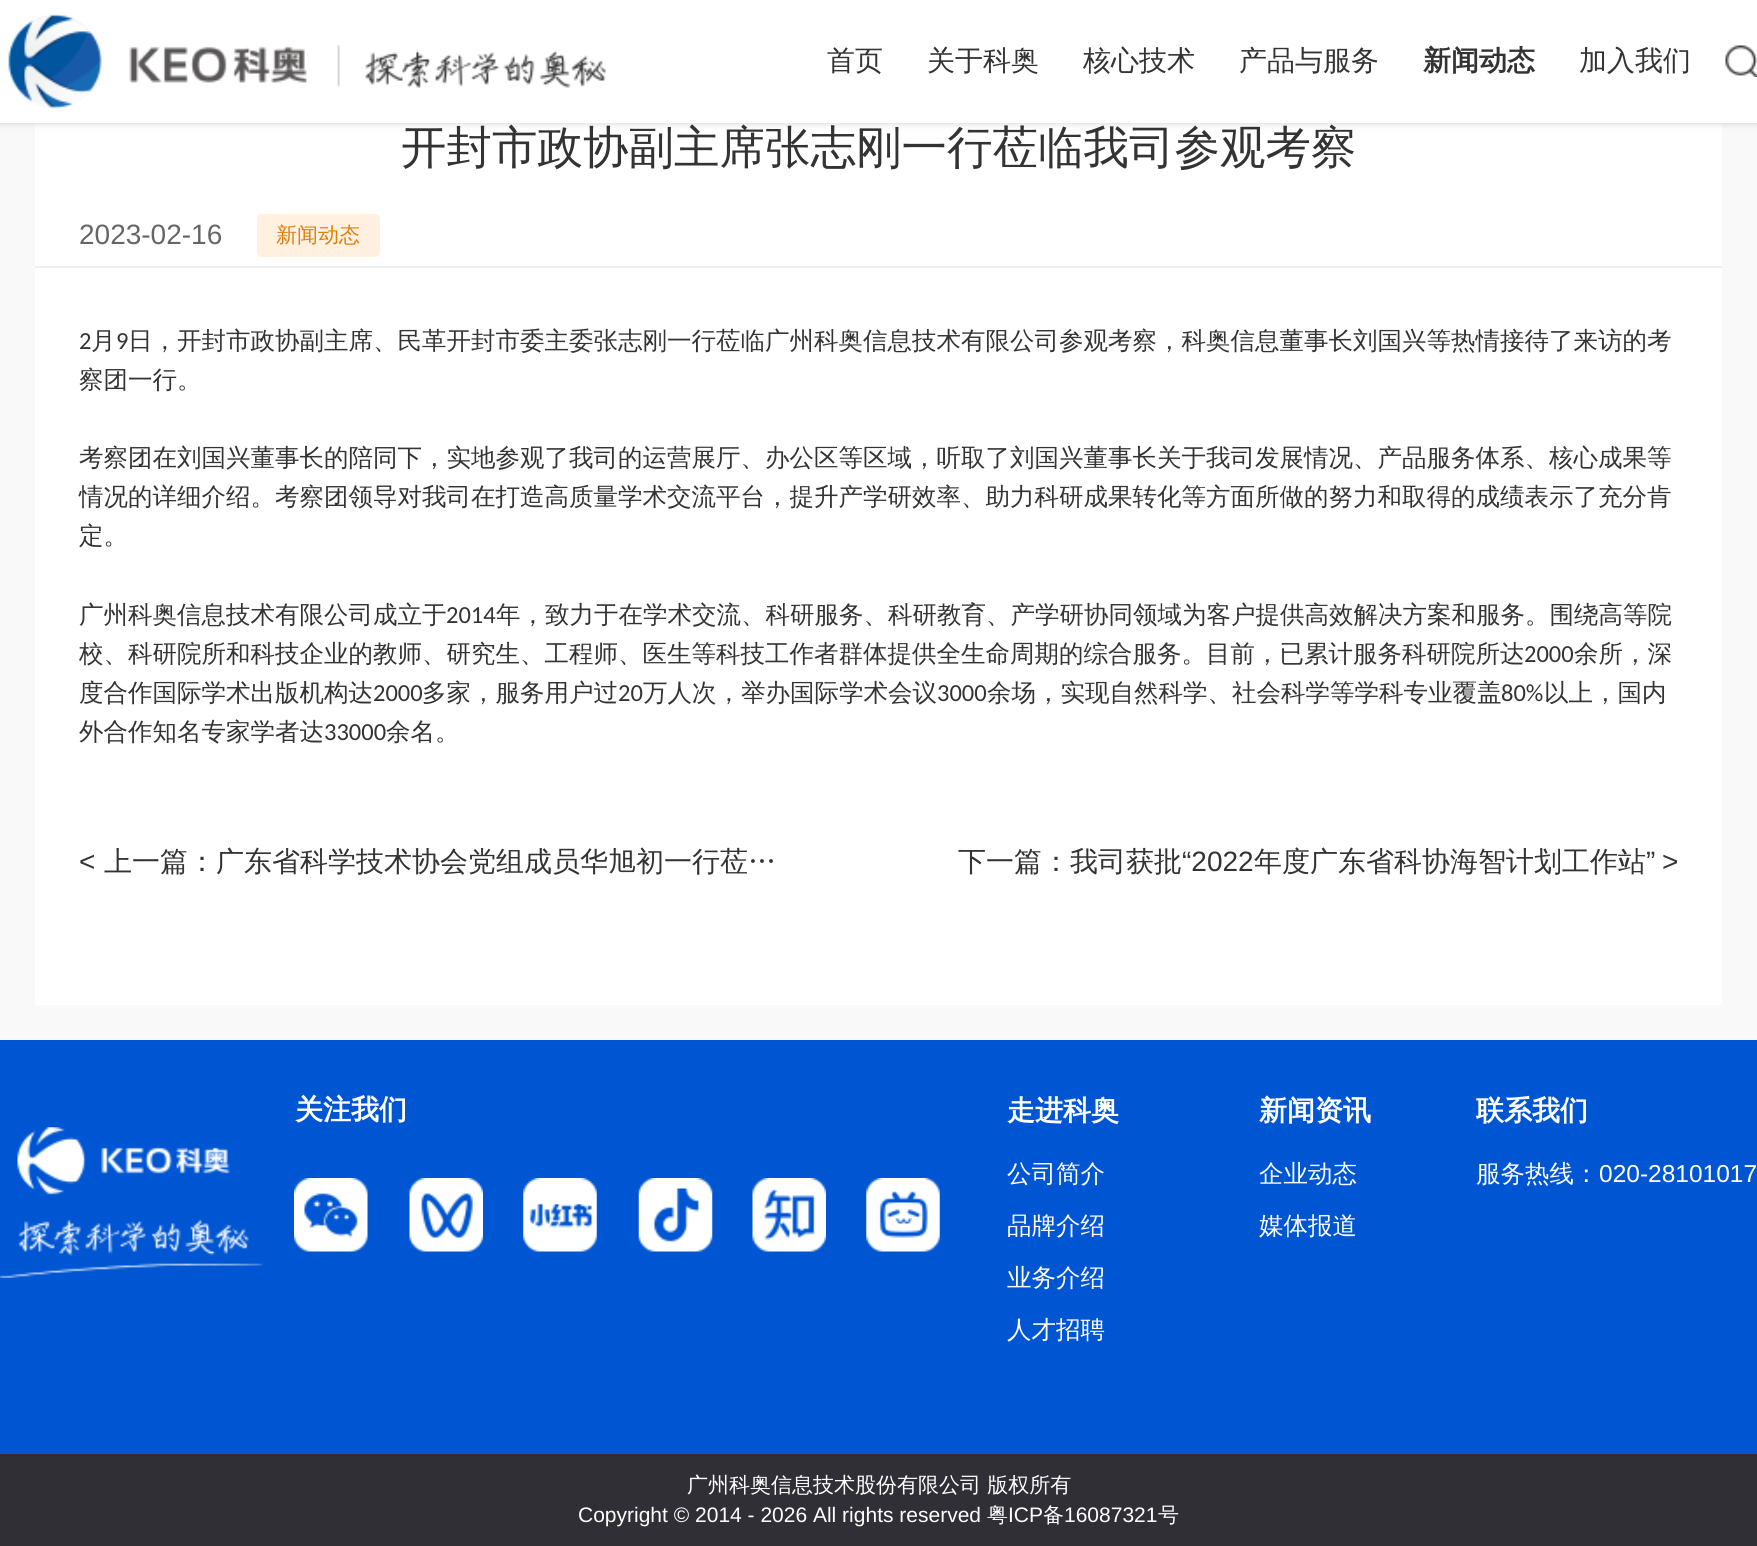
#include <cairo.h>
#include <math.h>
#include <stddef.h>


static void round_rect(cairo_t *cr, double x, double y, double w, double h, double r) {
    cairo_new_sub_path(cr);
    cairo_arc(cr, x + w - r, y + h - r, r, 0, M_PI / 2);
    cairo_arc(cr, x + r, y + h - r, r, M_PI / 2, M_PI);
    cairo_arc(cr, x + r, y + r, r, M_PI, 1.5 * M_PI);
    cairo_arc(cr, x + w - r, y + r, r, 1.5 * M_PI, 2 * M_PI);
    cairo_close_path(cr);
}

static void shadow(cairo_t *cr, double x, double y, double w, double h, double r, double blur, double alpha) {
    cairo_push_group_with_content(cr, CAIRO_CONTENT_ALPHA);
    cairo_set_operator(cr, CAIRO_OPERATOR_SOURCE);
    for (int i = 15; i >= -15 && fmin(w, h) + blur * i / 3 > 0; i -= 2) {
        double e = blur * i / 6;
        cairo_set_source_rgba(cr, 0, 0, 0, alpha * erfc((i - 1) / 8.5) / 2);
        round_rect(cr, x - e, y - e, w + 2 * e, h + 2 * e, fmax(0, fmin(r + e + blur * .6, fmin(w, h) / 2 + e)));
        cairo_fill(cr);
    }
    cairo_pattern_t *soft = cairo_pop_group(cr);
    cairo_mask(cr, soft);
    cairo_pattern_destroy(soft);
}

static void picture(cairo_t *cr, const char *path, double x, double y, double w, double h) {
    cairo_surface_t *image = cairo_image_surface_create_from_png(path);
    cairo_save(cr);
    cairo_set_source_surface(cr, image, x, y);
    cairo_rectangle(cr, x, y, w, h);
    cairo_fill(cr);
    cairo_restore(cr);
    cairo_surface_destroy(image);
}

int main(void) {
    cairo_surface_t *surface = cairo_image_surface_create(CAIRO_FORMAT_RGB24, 1757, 1546);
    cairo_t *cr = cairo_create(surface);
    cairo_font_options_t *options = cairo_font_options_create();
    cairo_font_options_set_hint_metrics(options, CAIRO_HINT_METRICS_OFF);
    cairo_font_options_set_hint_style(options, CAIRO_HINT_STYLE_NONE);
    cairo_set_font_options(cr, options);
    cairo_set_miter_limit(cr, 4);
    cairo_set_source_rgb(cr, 0.973, 0.973, 0.973);
    cairo_paint(cr);
    cairo_set_source_rgb(cr, 1, 1, 1);
    cairo_rectangle(cr, 35, 123, 1687, 882);
    cairo_fill(cr);
    cairo_set_source_rgb(cr, 0, 0, 0);
    shadow(cr, 0, 0, 1757, 123, 0, 3.5, 0.2);
    cairo_set_source_rgb(cr, 1, 1, 1);
    cairo_rectangle(cr, 0, 0, 1757, 123);
    cairo_fill(cr);
    picture(cr, "img1.png", 8, 14, 598, 95);
    cairo_select_font_face(cr, "WenQuanYi Zen Hei Medium", CAIRO_FONT_SLANT_NORMAL, CAIRO_FONT_WEIGHT_NORMAL);
    cairo_set_font_size(cr, 28);
    cairo_set_source_rgb(cr, 0.2, 0.2, 0.2);
    cairo_move_to(cr, 827, 70);
    cairo_show_text(cr, "首页");
    cairo_move_to(cr, 927, 70);
    cairo_show_text(cr, "关于科奥");
    cairo_move_to(cr, 1083, 70);
    cairo_show_text(cr, "核心技术");
    cairo_move_to(cr, 1239, 70);
    cairo_show_text(cr, "产品与服务");
    cairo_select_font_face(cr, "WenQuanYi Zen Hei", CAIRO_FONT_SLANT_NORMAL, CAIRO_FONT_WEIGHT_BOLD);
    cairo_move_to(cr, 1423, 70);
    cairo_show_text(cr, "新闻动态");
    cairo_select_font_face(cr, "WenQuanYi Zen Hei Medium", CAIRO_FONT_SLANT_NORMAL, CAIRO_FONT_WEIGHT_NORMAL);
    cairo_move_to(cr, 1579, 70);
    cairo_show_text(cr, "加入我们");
    picture(cr, "img2.png", 1725, 45, 32, 32);
    cairo_set_source_rgb(cr, 0.933, 0.933, 0.933);
    cairo_rectangle(cr, 35, 266, 1687, 2);
    cairo_fill(cr);
    cairo_set_font_size(cr, 45.5);
    cairo_set_source_rgb(cr, 0.2, 0.2, 0.2);
    cairo_move_to(cr, 401, 163);
    cairo_show_text(cr, "开封市政协副主席张志刚一行莅临我司参观考察");
    cairo_select_font_face(cr, "Liberation Sans", CAIRO_FONT_SLANT_NORMAL, CAIRO_FONT_WEIGHT_NORMAL);
    cairo_set_font_size(cr, 28);
    cairo_set_source_rgb(cr, 0.4, 0.4, 0.4);
    cairo_move_to(cr, 79, 244);
    cairo_show_text(cr, "2023-02-16");
    cairo_set_source_rgb(cr, 1, 0.941, 0.875);
    round_rect(cr, 257, 214, 123, 43, 5);
    cairo_fill(cr);
    cairo_select_font_face(cr, "WenQuanYi Zen Hei Medium", CAIRO_FONT_SLANT_NORMAL, CAIRO_FONT_WEIGHT_NORMAL);
    cairo_set_font_size(cr, 21);
    cairo_set_source_rgb(cr, 0.875, 0.494, 0.055);
    cairo_move_to(cr, 276, 242);
    cairo_show_text(cr, "新闻动态");
    cairo_select_font_face(cr, "Carlito", CAIRO_FONT_SLANT_NORMAL, CAIRO_FONT_WEIGHT_NORMAL);
    cairo_set_font_size(cr, 24.5);
    cairo_set_source_rgb(cr, 0.2, 0.2, 0.2);
    cairo_move_to(cr, 79, 349);
    cairo_show_text(cr, "2");
    cairo_select_font_face(cr, "WenQuanYi Zen Hei Medium", CAIRO_FONT_SLANT_NORMAL, CAIRO_FONT_WEIGHT_NORMAL);
    cairo_move_to(cr, 91, 349);
    cairo_show_text(cr, "月");
    cairo_select_font_face(cr, "Carlito", CAIRO_FONT_SLANT_NORMAL, CAIRO_FONT_WEIGHT_NORMAL);
    cairo_move_to(cr, 116, 349);
    cairo_show_text(cr, "9");
    cairo_select_font_face(cr, "WenQuanYi Zen Hei Medium", CAIRO_FONT_SLANT_NORMAL, CAIRO_FONT_WEIGHT_NORMAL);
    cairo_move_to(cr, 128, 349);
    cairo_show_text(cr, "日，开封市政协副主席、民革开封市委主委张志刚一行莅临广州科奥信息技术有限公司参观考察，科奥信息董事长刘国兴等热情接待了来访的考");
    cairo_move_to(cr, 79, 388);
    cairo_show_text(cr, "察团一行。");
    cairo_move_to(cr, 79, 466);
    cairo_show_text(cr, "考察团在刘国兴董事长的陪同下，实地参观了我司的运营展厅、办公区等区域，听取了刘国兴董事长关于我司发展情况、产品服务体系、核心成果等");
    cairo_move_to(cr, 79, 505);
    cairo_show_text(cr, "情况的详细介绍。考察团领导对我司在打造高质量学术交流平台，提升产学研效率、助力科研成果转化等方面所做的努力和取得的成绩表示了充分肯");
    cairo_move_to(cr, 79, 544);
    cairo_show_text(cr, "定。");
    cairo_move_to(cr, 79, 623);
    cairo_show_text(cr, "广州科奥信息技术有限公司成立于");
    cairo_select_font_face(cr, "Carlito", CAIRO_FONT_SLANT_NORMAL, CAIRO_FONT_WEIGHT_NORMAL);
    cairo_move_to(cr, 446, 623);
    cairo_show_text(cr, "2014");
    cairo_select_font_face(cr, "WenQuanYi Zen Hei Medium", CAIRO_FONT_SLANT_NORMAL, CAIRO_FONT_WEIGHT_NORMAL);
    cairo_move_to(cr, 496, 623);
    cairo_show_text(cr, "年，致力于在学术交流、科研服务、科研教育、产学研协同领域为客户提供高效解决方案和服务。围绕高等院");
    cairo_move_to(cr, 79, 662);
    cairo_show_text(cr, "校、科研院所和科技企业的教师、研究生、工程师、医生等科技工作者群体提供全生命周期的综合服务。目前，已累计服务科研院所达");
    cairo_select_font_face(cr, "Carlito", CAIRO_FONT_SLANT_NORMAL, CAIRO_FONT_WEIGHT_NORMAL);
    cairo_move_to(cr, 1524, 662);
    cairo_show_text(cr, "2000");
    cairo_select_font_face(cr, "WenQuanYi Zen Hei Medium", CAIRO_FONT_SLANT_NORMAL, CAIRO_FONT_WEIGHT_NORMAL);
    cairo_move_to(cr, 1574, 662);
    cairo_show_text(cr, "余所，深");
    cairo_move_to(cr, 79, 701);
    cairo_show_text(cr, "度合作国际学术出版机构达");
    cairo_select_font_face(cr, "Carlito", CAIRO_FONT_SLANT_NORMAL, CAIRO_FONT_WEIGHT_NORMAL);
    cairo_move_to(cr, 373, 701);
    cairo_show_text(cr, "2000");
    cairo_select_font_face(cr, "WenQuanYi Zen Hei Medium", CAIRO_FONT_SLANT_NORMAL, CAIRO_FONT_WEIGHT_NORMAL);
    cairo_move_to(cr, 422, 701);
    cairo_show_text(cr, "多家，服务用户过");
    cairo_select_font_face(cr, "Carlito", CAIRO_FONT_SLANT_NORMAL, CAIRO_FONT_WEIGHT_NORMAL);
    cairo_move_to(cr, 618, 701);
    cairo_show_text(cr, "20");
    cairo_select_font_face(cr, "WenQuanYi Zen Hei Medium", CAIRO_FONT_SLANT_NORMAL, CAIRO_FONT_WEIGHT_NORMAL);
    cairo_move_to(cr, 643, 701);
    cairo_show_text(cr, "万人次，举办国际学术会议");
    cairo_select_font_face(cr, "Carlito", CAIRO_FONT_SLANT_NORMAL, CAIRO_FONT_WEIGHT_NORMAL);
    cairo_move_to(cr, 937, 701);
    cairo_show_text(cr, "3000");
    cairo_select_font_face(cr, "WenQuanYi Zen Hei Medium", CAIRO_FONT_SLANT_NORMAL, CAIRO_FONT_WEIGHT_NORMAL);
    cairo_move_to(cr, 987, 701);
    cairo_show_text(cr, "余场，实现自然科学、社会科学等学科专业覆盖");
    cairo_select_font_face(cr, "Carlito", CAIRO_FONT_SLANT_NORMAL, CAIRO_FONT_WEIGHT_NORMAL);
    cairo_move_to(cr, 1501, 701);
    cairo_show_text(cr, "80%");
    cairo_select_font_face(cr, "WenQuanYi Zen Hei Medium", CAIRO_FONT_SLANT_NORMAL, CAIRO_FONT_WEIGHT_NORMAL);
    cairo_move_to(cr, 1544, 701);
    cairo_show_text(cr, "以上，国内");
    cairo_move_to(cr, 79, 740);
    cairo_show_text(cr, "外合作知名专家学者达");
    cairo_select_font_face(cr, "Carlito", CAIRO_FONT_SLANT_NORMAL, CAIRO_FONT_WEIGHT_NORMAL);
    cairo_move_to(cr, 324, 740);
    cairo_show_text(cr, "33000");
    cairo_select_font_face(cr, "WenQuanYi Zen Hei Medium", CAIRO_FONT_SLANT_NORMAL, CAIRO_FONT_WEIGHT_NORMAL);
    cairo_move_to(cr, 386, 740);
    cairo_show_text(cr, "余名。");
    cairo_select_font_face(cr, "Liberation Sans", CAIRO_FONT_SLANT_NORMAL, CAIRO_FONT_WEIGHT_NORMAL);
    cairo_set_font_size(cr, 28);
    cairo_move_to(cr, 79, 871);
    cairo_show_text(cr, "<");
    cairo_select_font_face(cr, "WenQuanYi Zen Hei Medium", CAIRO_FONT_SLANT_NORMAL, CAIRO_FONT_WEIGHT_NORMAL);
    cairo_move_to(cr, 104, 871);
    cairo_show_text(cr, "上一篇：广东省科学技术协会党组成员华旭初一行莅…");
    cairo_move_to(cr, 958, 871);
    cairo_show_text(cr, "下一篇：我司获批");
    cairo_select_font_face(cr, "Liberation Sans", CAIRO_FONT_SLANT_NORMAL, CAIRO_FONT_WEIGHT_NORMAL);
    cairo_move_to(cr, 1182, 871);
    cairo_show_text(cr, "“2022");
    cairo_select_font_face(cr, "WenQuanYi Zen Hei Medium", CAIRO_FONT_SLANT_NORMAL, CAIRO_FONT_WEIGHT_NORMAL);
    cairo_move_to(cr, 1254, 871);
    cairo_show_text(cr, "年度广东省科协海智计划工作站");
    cairo_select_font_face(cr, "Liberation Sans", CAIRO_FONT_SLANT_NORMAL, CAIRO_FONT_WEIGHT_NORMAL);
    cairo_move_to(cr, 1646, 871);
    cairo_show_text(cr, "”");
    cairo_move_to(cr, 1662, 871);
    cairo_show_text(cr, ">");
    cairo_set_source_rgb(cr, 0, 0.337, 0.824);
    cairo_rectangle(cr, 0, 1040, 1757, 414);
    cairo_fill(cr);
    picture(cr, "img3.png", 0, 1127, 263, 151);
    cairo_select_font_face(cr, "WenQuanYi Zen Hei", CAIRO_FONT_SLANT_NORMAL, CAIRO_FONT_WEIGHT_BOLD);
    cairo_set_source_rgb(cr, 1, 1, 1);
    cairo_move_to(cr, 295, 1119);
    cairo_show_text(cr, "关注我们");
    picture(cr, "img4.png", 294, 1178, 74, 74);
    picture(cr, "img5.png", 409, 1178, 74, 74);
    picture(cr, "img6.png", 523, 1178, 74, 74);
    picture(cr, "img7.png", 638, 1178, 75, 74);
    picture(cr, "img8.png", 752, 1178, 74, 74);
    picture(cr, "img9.png", 866, 1178, 74, 74);
    cairo_move_to(cr, 1007, 1120);
    cairo_show_text(cr, "走进科奥");
    cairo_select_font_face(cr, "WenQuanYi Zen Hei Medium", CAIRO_FONT_SLANT_NORMAL, CAIRO_FONT_WEIGHT_NORMAL);
    cairo_set_font_size(cr, 24.5);
    cairo_move_to(cr, 1007, 1182);
    cairo_show_text(cr, "公司简介");
    cairo_move_to(cr, 1007, 1234);
    cairo_show_text(cr, "品牌介绍");
    cairo_move_to(cr, 1007, 1286);
    cairo_show_text(cr, "业务介绍");
    cairo_move_to(cr, 1007, 1338);
    cairo_show_text(cr, "人才招聘");
    cairo_select_font_face(cr, "WenQuanYi Zen Hei", CAIRO_FONT_SLANT_NORMAL, CAIRO_FONT_WEIGHT_BOLD);
    cairo_set_font_size(cr, 28);
    cairo_move_to(cr, 1259, 1120);
    cairo_show_text(cr, "新闻资讯");
    cairo_select_font_face(cr, "WenQuanYi Zen Hei Medium", CAIRO_FONT_SLANT_NORMAL, CAIRO_FONT_WEIGHT_NORMAL);
    cairo_set_font_size(cr, 24.5);
    cairo_move_to(cr, 1259, 1182);
    cairo_show_text(cr, "企业动态");
    cairo_move_to(cr, 1259, 1234);
    cairo_show_text(cr, "媒体报道");
    cairo_select_font_face(cr, "WenQuanYi Zen Hei", CAIRO_FONT_SLANT_NORMAL, CAIRO_FONT_WEIGHT_BOLD);
    cairo_set_font_size(cr, 28);
    cairo_move_to(cr, 1476, 1120);
    cairo_show_text(cr, "联系我们");
    cairo_select_font_face(cr, "WenQuanYi Zen Hei Medium", CAIRO_FONT_SLANT_NORMAL, CAIRO_FONT_WEIGHT_NORMAL);
    cairo_set_font_size(cr, 24.5);
    cairo_move_to(cr, 1476, 1182);
    cairo_show_text(cr, "服务热线：");
    cairo_select_font_face(cr, "Liberation Sans", CAIRO_FONT_SLANT_NORMAL, CAIRO_FONT_WEIGHT_NORMAL);
    cairo_move_to(cr, 1599, 1182);
    cairo_show_text(cr, "020-28101017");
    cairo_set_source_rgb(cr, 0.188, 0.184, 0.212);
    cairo_rectangle(cr, 0, 1454, 1757, 92);
    cairo_fill(cr);
    cairo_select_font_face(cr, "WenQuanYi Zen Hei Medium", CAIRO_FONT_SLANT_NORMAL, CAIRO_FONT_WEIGHT_NORMAL);
    cairo_set_font_size(cr, 21);
    cairo_set_source_rgb(cr, 1, 1, 1);
    cairo_move_to(cr, 687, 1492);
    cairo_show_text(cr, "广州科奥信息技术股份有限公司 版权所有");
    cairo_select_font_face(cr, "Liberation Sans", CAIRO_FONT_SLANT_NORMAL, CAIRO_FONT_WEIGHT_NORMAL);
    cairo_move_to(cr, 578, 1522);
    cairo_show_text(cr, "Copyright © 2014 - 2026 All rights reserved");
    cairo_select_font_face(cr, "WenQuanYi Zen Hei Medium", CAIRO_FONT_SLANT_NORMAL, CAIRO_FONT_WEIGHT_NORMAL);
    cairo_move_to(cr, 987, 1522);
    cairo_show_text(cr, "粤");
    cairo_select_font_face(cr, "Liberation Sans", CAIRO_FONT_SLANT_NORMAL, CAIRO_FONT_WEIGHT_NORMAL);
    cairo_move_to(cr, 1008, 1522);
    cairo_show_text(cr, "ICP");
    cairo_select_font_face(cr, "WenQuanYi Zen Hei Medium", CAIRO_FONT_SLANT_NORMAL, CAIRO_FONT_WEIGHT_NORMAL);
    cairo_move_to(cr, 1043, 1522);
    cairo_show_text(cr, "备");
    cairo_select_font_face(cr, "Liberation Sans", CAIRO_FONT_SLANT_NORMAL, CAIRO_FONT_WEIGHT_NORMAL);
    cairo_move_to(cr, 1064, 1522);
    cairo_show_text(cr, "16087321");
    cairo_select_font_face(cr, "WenQuanYi Zen Hei Medium", CAIRO_FONT_SLANT_NORMAL, CAIRO_FONT_WEIGHT_NORMAL);
    cairo_move_to(cr, 1158, 1522);
    cairo_show_text(cr, "号");
    cairo_surface_write_to_png(surface, "page.png");
    cairo_font_options_destroy(options);
    cairo_destroy(cr);
    cairo_surface_destroy(surface);
    return 0;
}
